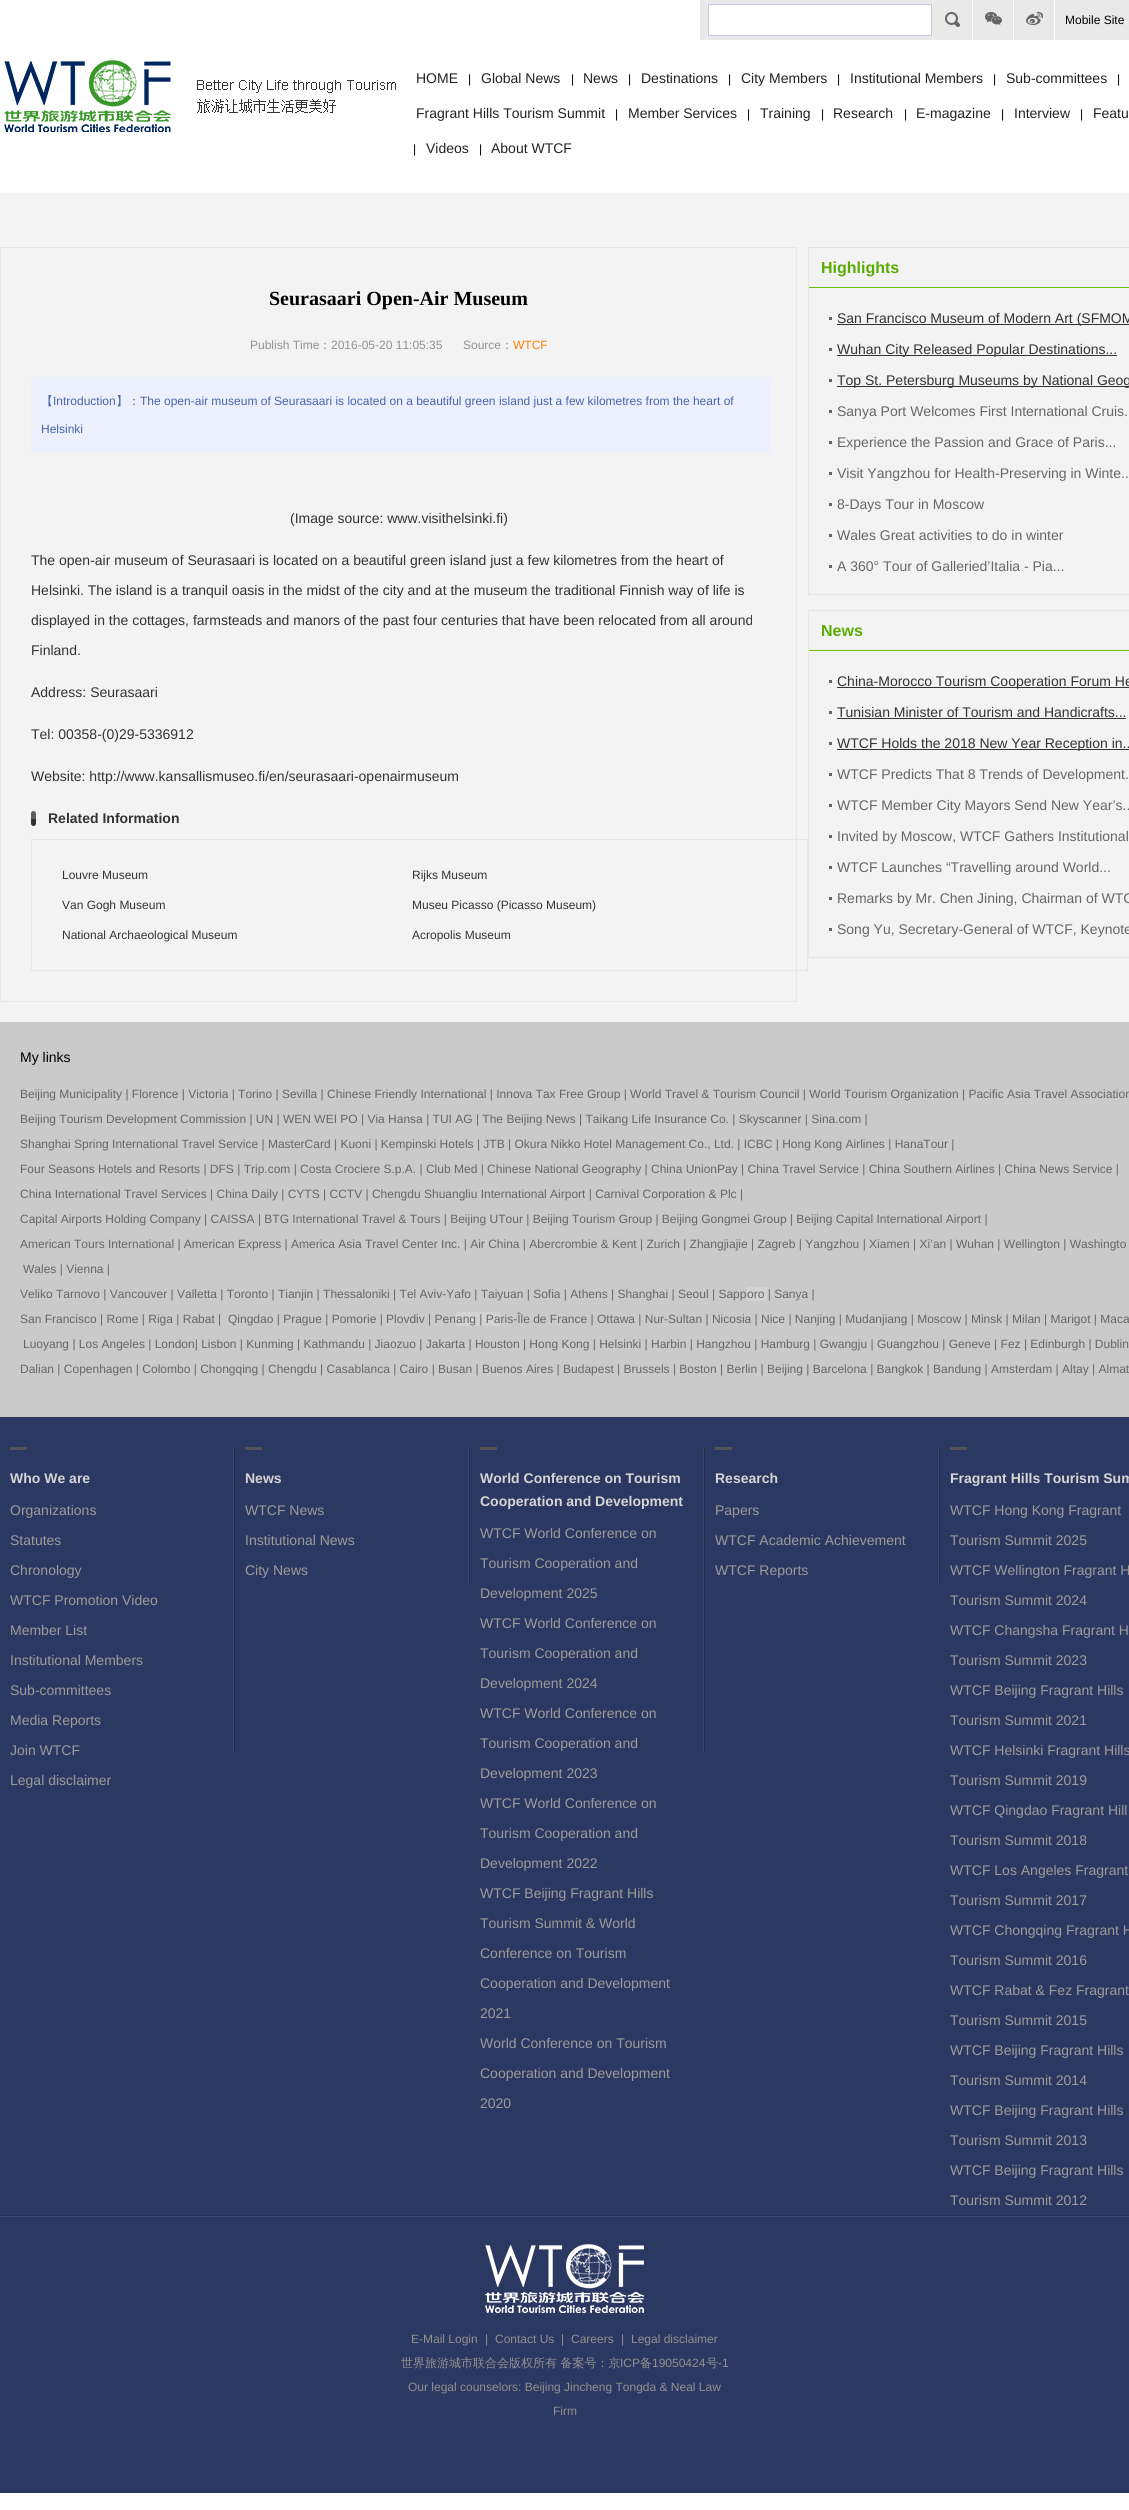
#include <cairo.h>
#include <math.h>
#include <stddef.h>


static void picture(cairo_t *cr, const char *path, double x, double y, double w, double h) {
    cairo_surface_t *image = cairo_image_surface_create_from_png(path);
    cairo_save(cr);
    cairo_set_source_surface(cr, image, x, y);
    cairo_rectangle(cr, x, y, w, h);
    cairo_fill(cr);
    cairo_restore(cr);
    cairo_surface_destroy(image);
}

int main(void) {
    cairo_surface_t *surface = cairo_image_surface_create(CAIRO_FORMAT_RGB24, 1129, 2510);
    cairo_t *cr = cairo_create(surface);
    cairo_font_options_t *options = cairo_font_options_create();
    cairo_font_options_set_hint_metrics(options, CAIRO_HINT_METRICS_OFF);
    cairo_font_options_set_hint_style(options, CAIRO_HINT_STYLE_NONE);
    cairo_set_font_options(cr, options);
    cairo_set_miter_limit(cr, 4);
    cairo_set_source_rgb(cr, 1, 1, 1);
    cairo_paint(cr);
    cairo_set_source_rgb(cr, 0.914, 0.914, 0.914);
    cairo_rectangle(cr, 700, 0, 429, 40);
    cairo_fill(cr);
    cairo_set_source_rgb(cr, 1, 1, 1);
    cairo_rectangle(cr, 708.5, 4.5, 223, 31);
    cairo_fill_preserve(cr);
    cairo_set_source_rgb(cr, 0.765, 0.788, 0.871);
    cairo_set_line_width(cr, 1);
    cairo_stroke(cr);
    cairo_set_source_rgb(cr, 1, 1, 1);
    cairo_rectangle(cr, 972, 0, 1, 40);
    cairo_fill(cr);
    picture(cr, "img1.png", 945, 12, 15, 15);
    cairo_rectangle(cr, 1013, 0, 1, 40);
    cairo_fill(cr);
    picture(cr, "img2.png", 985, 12, 17, 13);
    cairo_rectangle(cr, 1054, 0, 1, 40);
    cairo_fill(cr);
    picture(cr, "img3.png", 1026, 12, 17, 13);
    cairo_select_font_face(cr, "Liberation Sans", CAIRO_FONT_SLANT_NORMAL, CAIRO_FONT_WEIGHT_NORMAL);
    cairo_set_font_size(cr, 12);
    cairo_set_source_rgb(cr, 0, 0, 0);
    cairo_move_to(cr, 1065, 24);
    cairo_show_text(cr, "Mobile Site");
    picture(cr, "img4.png", 4, 60, 392, 72);
    cairo_set_font_size(cr, 14);
    cairo_set_source_rgb(cr, 0.133, 0.133, 0.133);
    cairo_move_to(cr, 416, 83);
    cairo_show_text(cr, "HOME");
    cairo_set_font_size(cr, 12);
    cairo_set_source_rgb(cr, 0, 0, 0);
    cairo_move_to(cr, 468, 83);
    cairo_show_text(cr, "|");
    cairo_set_font_size(cr, 14);
    cairo_set_source_rgb(cr, 0.133, 0.133, 0.133);
    cairo_move_to(cr, 481, 83);
    cairo_show_text(cr, "Global News");
    cairo_set_font_size(cr, 12);
    cairo_set_source_rgb(cr, 0, 0, 0);
    cairo_move_to(cr, 571, 83);
    cairo_show_text(cr, "|");
    cairo_set_font_size(cr, 14);
    cairo_set_source_rgb(cr, 0.133, 0.133, 0.133);
    cairo_move_to(cr, 583, 83);
    cairo_show_text(cr, "News");
    cairo_set_font_size(cr, 12);
    cairo_set_source_rgb(cr, 0, 0, 0);
    cairo_move_to(cr, 628, 83);
    cairo_show_text(cr, "|");
    cairo_set_font_size(cr, 14);
    cairo_set_source_rgb(cr, 0.133, 0.133, 0.133);
    cairo_move_to(cr, 641, 83);
    cairo_show_text(cr, "Destinations");
    cairo_set_font_size(cr, 12);
    cairo_set_source_rgb(cr, 0, 0, 0);
    cairo_move_to(cr, 728, 83);
    cairo_show_text(cr, "|");
    cairo_set_font_size(cr, 14);
    cairo_set_source_rgb(cr, 0.133, 0.133, 0.133);
    cairo_move_to(cr, 741, 83);
    cairo_show_text(cr, "City Members");
    cairo_set_font_size(cr, 12);
    cairo_set_source_rgb(cr, 0, 0, 0);
    cairo_move_to(cr, 837, 83);
    cairo_show_text(cr, "|");
    cairo_set_font_size(cr, 14);
    cairo_set_source_rgb(cr, 0.133, 0.133, 0.133);
    cairo_move_to(cr, 850, 83);
    cairo_show_text(cr, "Institutional Members");
    cairo_set_font_size(cr, 12);
    cairo_set_source_rgb(cr, 0, 0, 0);
    cairo_move_to(cr, 993, 83);
    cairo_show_text(cr, "|");
    cairo_set_font_size(cr, 14);
    cairo_set_source_rgb(cr, 0.133, 0.133, 0.133);
    cairo_move_to(cr, 1006, 83);
    cairo_show_text(cr, "Sub-committees");
    cairo_set_font_size(cr, 12);
    cairo_set_source_rgb(cr, 0, 0, 0);
    cairo_move_to(cr, 1117, 83);
    cairo_show_text(cr, "|");
    cairo_set_font_size(cr, 14);
    cairo_set_source_rgb(cr, 0.133, 0.133, 0.133);
    cairo_move_to(cr, 416, 118);
    cairo_show_text(cr, "Fragrant Hills Tourism Summit");
    cairo_set_font_size(cr, 12);
    cairo_set_source_rgb(cr, 0, 0, 0);
    cairo_move_to(cr, 615, 118);
    cairo_show_text(cr, "|");
    cairo_set_font_size(cr, 14);
    cairo_set_source_rgb(cr, 0.133, 0.133, 0.133);
    cairo_move_to(cr, 628, 118);
    cairo_show_text(cr, "Member Services");
    cairo_set_font_size(cr, 12);
    cairo_set_source_rgb(cr, 0, 0, 0);
    cairo_move_to(cr, 747, 118);
    cairo_show_text(cr, "|");
    cairo_set_font_size(cr, 14);
    cairo_set_source_rgb(cr, 0.133, 0.133, 0.133);
    cairo_move_to(cr, 760, 118);
    cairo_show_text(cr, "Training");
    cairo_set_font_size(cr, 12);
    cairo_set_source_rgb(cr, 0, 0, 0);
    cairo_move_to(cr, 821, 118);
    cairo_show_text(cr, "|");
    cairo_set_font_size(cr, 14);
    cairo_set_source_rgb(cr, 0.133, 0.133, 0.133);
    cairo_move_to(cr, 833, 118);
    cairo_show_text(cr, "Research");
    cairo_set_font_size(cr, 12);
    cairo_set_source_rgb(cr, 0, 0, 0);
    cairo_move_to(cr, 904, 118);
    cairo_show_text(cr, "|");
    cairo_set_font_size(cr, 14);
    cairo_set_source_rgb(cr, 0.133, 0.133, 0.133);
    cairo_move_to(cr, 916, 118);
    cairo_show_text(cr, "E-magazine");
    cairo_set_font_size(cr, 12);
    cairo_set_source_rgb(cr, 0, 0, 0);
    cairo_move_to(cr, 1001, 118);
    cairo_show_text(cr, "|");
    cairo_set_font_size(cr, 14);
    cairo_set_source_rgb(cr, 0.133, 0.133, 0.133);
    cairo_move_to(cr, 1014, 118);
    cairo_show_text(cr, "Interview");
    cairo_set_font_size(cr, 12);
    cairo_set_source_rgb(cr, 0, 0, 0);
    cairo_move_to(cr, 1080, 118);
    cairo_show_text(cr, "|");
    cairo_set_font_size(cr, 14);
    cairo_set_source_rgb(cr, 0.133, 0.133, 0.133);
    cairo_move_to(cr, 1093, 118);
    cairo_show_text(cr, "Featu");
    cairo_set_font_size(cr, 12);
    cairo_set_source_rgb(cr, 0, 0, 0);
    cairo_move_to(cr, 413, 153);
    cairo_show_text(cr, "|");
    cairo_set_font_size(cr, 14);
    cairo_set_source_rgb(cr, 0.133, 0.133, 0.133);
    cairo_move_to(cr, 426, 153);
    cairo_show_text(cr, "Videos");
    cairo_set_font_size(cr, 12);
    cairo_set_source_rgb(cr, 0, 0, 0);
    cairo_move_to(cr, 479, 153);
    cairo_show_text(cr, "|");
    cairo_set_font_size(cr, 14);
    cairo_set_source_rgb(cr, 0.133, 0.133, 0.133);
    cairo_move_to(cr, 491, 153);
    cairo_show_text(cr, "About WTCF");
    cairo_set_source_rgb(cr, 0.953, 0.953, 0.953);
    cairo_rectangle(cr, 0, 193, 1129, 829);
    cairo_fill(cr);
    cairo_rectangle(cr, 0.5, 247.5, 796, 754);
    cairo_set_source_rgb(cr, 0.902, 0.902, 0.902);
    cairo_stroke(cr);
    cairo_select_font_face(cr, "Liberation Serif", CAIRO_FONT_SLANT_NORMAL, CAIRO_FONT_WEIGHT_BOLD);
    cairo_set_font_size(cr, 20);
    cairo_set_source_rgb(cr, 0, 0, 0);
    cairo_move_to(cr, 269, 305);
    cairo_show_text(cr, "Seurasaari Open-Air Museum");
    cairo_select_font_face(cr, "Liberation Sans", CAIRO_FONT_SLANT_NORMAL, CAIRO_FONT_WEIGHT_NORMAL);
    cairo_set_font_size(cr, 12);
    cairo_set_source_rgb(cr, 0.569, 0.569, 0.569);
    cairo_move_to(cr, 250, 349);
    cairo_show_text(cr, "Publish Time");
    cairo_select_font_face(cr, "WenQuanYi Zen Hei Medium", CAIRO_FONT_SLANT_NORMAL, CAIRO_FONT_WEIGHT_NORMAL);
    cairo_move_to(cr, 319, 349);
    cairo_show_text(cr, "：");
    cairo_select_font_face(cr, "Liberation Sans", CAIRO_FONT_SLANT_NORMAL, CAIRO_FONT_WEIGHT_NORMAL);
    cairo_move_to(cr, 331, 349);
    cairo_show_text(cr, "2016-05-20 11:05:35");
    cairo_move_to(cr, 463, 349);
    cairo_show_text(cr, "Source");
    cairo_select_font_face(cr, "WenQuanYi Zen Hei Medium", CAIRO_FONT_SLANT_NORMAL, CAIRO_FONT_WEIGHT_NORMAL);
    cairo_move_to(cr, 501, 349);
    cairo_show_text(cr, "：");
    cairo_select_font_face(cr, "Liberation Sans", CAIRO_FONT_SLANT_NORMAL, CAIRO_FONT_WEIGHT_NORMAL);
    cairo_set_source_rgb(cr, 1, 0.49, 0);
    cairo_move_to(cr, 513, 349);
    cairo_show_text(cr, "WTCF");
    cairo_set_source_rgb(cr, 0.922, 0.941, 0.992);
    cairo_rectangle(cr, 31, 377, 740, 76);
    cairo_fill(cr);
    cairo_select_font_face(cr, "WenQuanYi Zen Hei Medium", CAIRO_FONT_SLANT_NORMAL, CAIRO_FONT_WEIGHT_NORMAL);
    cairo_set_source_rgb(cr, 0.29, 0.388, 0.686);
    cairo_move_to(cr, 41, 405);
    cairo_show_text(cr, "【");
    cairo_select_font_face(cr, "Liberation Sans", CAIRO_FONT_SLANT_NORMAL, CAIRO_FONT_WEIGHT_NORMAL);
    cairo_move_to(cr, 53, 405);
    cairo_show_text(cr, "Introduction");
    cairo_select_font_face(cr, "WenQuanYi Zen Hei Medium", CAIRO_FONT_SLANT_NORMAL, CAIRO_FONT_WEIGHT_NORMAL);
    cairo_move_to(cr, 116, 405);
    cairo_show_text(cr, "】：");
    cairo_select_font_face(cr, "Liberation Sans", CAIRO_FONT_SLANT_NORMAL, CAIRO_FONT_WEIGHT_NORMAL);
    cairo_move_to(cr, 140, 405);
    cairo_show_text(cr, "The open-air museum of Seurasaari is located on a beautiful green island just a few kilometres from the heart of");
    cairo_move_to(cr, 41, 433);
    cairo_show_text(cr, "Helsinki");
    cairo_set_font_size(cr, 14);
    cairo_set_source_rgb(cr, 0.2, 0.2, 0.2);
    cairo_move_to(cr, 290, 523);
    cairo_show_text(cr, "(Image source: www.visithelsinki.fi)");
    cairo_move_to(cr, 31, 565);
    cairo_show_text(cr, "The open-air museum of Seurasaari is located on a beautiful green island just a few kilometres from the heart of");
    cairo_move_to(cr, 31, 595);
    cairo_show_text(cr, "Helsinki. The island is a tranquil oasis in the midst of the city and at the museum the traditional Finnish way of life is");
    cairo_move_to(cr, 31, 625);
    cairo_show_text(cr, "displayed in the cottages, farmsteads and manors of the past four centuries that have been relocated from all around");
    cairo_move_to(cr, 31, 655);
    cairo_show_text(cr, "Finland.");
    cairo_move_to(cr, 31, 697);
    cairo_show_text(cr, "Address: Seurasaari");
    cairo_move_to(cr, 31, 739);
    cairo_show_text(cr, "Tel: 00358-(0)29-5336912");
    cairo_move_to(cr, 31, 781);
    cairo_show_text(cr, "Website: http://www.kansallismuseo.fi/en/seurasaari-openairmuseum");
    picture(cr, "img5.png", 31, 811, 5, 15);
    cairo_select_font_face(cr, "Liberation Sans", CAIRO_FONT_SLANT_NORMAL, CAIRO_FONT_WEIGHT_BOLD);
    cairo_move_to(cr, 48, 823);
    cairo_show_text(cr, "Related Information");
    cairo_rectangle(cr, 31.5, 839.5, 776, 131);
    cairo_set_source_rgb(cr, 0.902, 0.902, 0.902);
    cairo_stroke(cr);
    cairo_select_font_face(cr, "Liberation Sans", CAIRO_FONT_SLANT_NORMAL, CAIRO_FONT_WEIGHT_NORMAL);
    cairo_set_font_size(cr, 12);
    cairo_set_source_rgb(cr, 0.2, 0.2, 0.2);
    cairo_move_to(cr, 62, 879);
    cairo_show_text(cr, "Louvre Museum");
    cairo_move_to(cr, 412, 879);
    cairo_show_text(cr, "Rijks Museum");
    cairo_move_to(cr, 62, 909);
    cairo_show_text(cr, "Van Gogh Museum");
    cairo_move_to(cr, 412, 909);
    cairo_show_text(cr, "Museu Picasso (Picasso Museum)");
    cairo_move_to(cr, 62, 939);
    cairo_show_text(cr, "National Archaeological Museum");
    cairo_move_to(cr, 412, 939);
    cairo_show_text(cr, "Acropolis Museum");
    cairo_rectangle(cr, 808.5, 247.5, 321, 347);
    cairo_set_source_rgb(cr, 0.898, 0.898, 0.898);
    cairo_stroke(cr);
    cairo_set_source_rgb(cr, 0.439, 0.741, 0.016);
    cairo_rectangle(cr, 809, 287, 320, 1);
    cairo_fill(cr);
    cairo_select_font_face(cr, "Liberation Sans", CAIRO_FONT_SLANT_NORMAL, CAIRO_FONT_WEIGHT_BOLD);
    cairo_set_font_size(cr, 16);
    cairo_set_source_rgb(cr, 0.353, 0.675, 0.012);
    cairo_move_to(cr, 821, 273);
    cairo_show_text(cr, "Highlights");
    cairo_set_source_rgb(cr, 0.4, 0.4, 0.4);
    cairo_rectangle(cr, 829, 317, 3, 3);
    cairo_fill(cr);
    cairo_set_source_rgb(cr, 0.2, 0.2, 0.2);
    cairo_rectangle(cr, 837, 324, 292, 1);
    cairo_fill(cr);
    cairo_select_font_face(cr, "Liberation Sans", CAIRO_FONT_SLANT_NORMAL, CAIRO_FONT_WEIGHT_NORMAL);
    cairo_set_font_size(cr, 14);
    cairo_move_to(cr, 837, 323);
    cairo_show_text(cr, "San Francisco Museum of Modern Art (SFMOM");
    cairo_set_source_rgb(cr, 0.4, 0.4, 0.4);
    cairo_rectangle(cr, 829, 348, 3, 3);
    cairo_fill(cr);
    cairo_set_source_rgb(cr, 0.2, 0.2, 0.2);
    cairo_rectangle(cr, 837, 355, 280, 1);
    cairo_fill(cr);
    cairo_move_to(cr, 837, 354);
    cairo_show_text(cr, "Wuhan City Released Popular Destinations...");
    cairo_set_source_rgb(cr, 0.4, 0.4, 0.4);
    cairo_rectangle(cr, 829, 379, 3, 3);
    cairo_fill(cr);
    cairo_set_source_rgb(cr, 0.2, 0.2, 0.2);
    cairo_rectangle(cr, 837, 386, 292, 1);
    cairo_fill(cr);
    cairo_move_to(cr, 837, 385);
    cairo_show_text(cr, "Top St. Petersburg Museums by National Geog");
    cairo_set_source_rgb(cr, 0.4, 0.4, 0.4);
    cairo_rectangle(cr, 829, 410, 3, 3);
    cairo_fill(cr);
    cairo_move_to(cr, 837, 416);
    cairo_show_text(cr, "Sanya Port Welcomes First International Cruis.");
    cairo_rectangle(cr, 829, 441, 3, 3);
    cairo_fill(cr);
    cairo_move_to(cr, 837, 447);
    cairo_show_text(cr, "Experience the Passion and Grace of Paris...");
    cairo_rectangle(cr, 829, 472, 3, 3);
    cairo_fill(cr);
    cairo_move_to(cr, 837, 478);
    cairo_show_text(cr, "Visit Yangzhou for Health-Preserving in Winte..");
    cairo_rectangle(cr, 829, 503, 3, 3);
    cairo_fill(cr);
    cairo_move_to(cr, 837, 509);
    cairo_show_text(cr, "8-Days Tour in Moscow");
    cairo_rectangle(cr, 829, 534, 3, 3);
    cairo_fill(cr);
    cairo_move_to(cr, 837, 540);
    cairo_show_text(cr, "Wales Great activities to do in winter");
    cairo_rectangle(cr, 829, 565, 3, 3);
    cairo_fill(cr);
    cairo_move_to(cr, 837, 571);
    cairo_show_text(cr, "A 360° Tour of Galleried’Italia - Pia...");
    cairo_rectangle(cr, 808.5, 610.5, 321, 347);
    cairo_set_source_rgb(cr, 0.898, 0.898, 0.898);
    cairo_stroke(cr);
    cairo_set_source_rgb(cr, 0.439, 0.741, 0.016);
    cairo_rectangle(cr, 809, 650, 320, 1);
    cairo_fill(cr);
    cairo_select_font_face(cr, "Liberation Sans", CAIRO_FONT_SLANT_NORMAL, CAIRO_FONT_WEIGHT_BOLD);
    cairo_set_font_size(cr, 16);
    cairo_set_source_rgb(cr, 0.353, 0.675, 0.012);
    cairo_move_to(cr, 821, 636);
    cairo_show_text(cr, "News");
    cairo_set_source_rgb(cr, 0.4, 0.4, 0.4);
    cairo_rectangle(cr, 829, 680, 3, 3);
    cairo_fill(cr);
    cairo_set_source_rgb(cr, 0.2, 0.2, 0.2);
    cairo_rectangle(cr, 837, 687, 292, 1);
    cairo_fill(cr);
    cairo_select_font_face(cr, "Liberation Sans", CAIRO_FONT_SLANT_NORMAL, CAIRO_FONT_WEIGHT_NORMAL);
    cairo_set_font_size(cr, 14);
    cairo_move_to(cr, 837, 686);
    cairo_show_text(cr, "China-Morocco Tourism Cooperation Forum He");
    cairo_set_source_rgb(cr, 0.4, 0.4, 0.4);
    cairo_rectangle(cr, 829, 711, 3, 3);
    cairo_fill(cr);
    cairo_set_source_rgb(cr, 0.2, 0.2, 0.2);
    cairo_move_to(cr, 837, 717);
    cairo_show_text(cr, "Tunisian Minister of Tourism and Handicrafts...");
    cairo_rectangle(cr, 837, 718, 289, 1);
    cairo_fill(cr);
    cairo_set_source_rgb(cr, 0.4, 0.4, 0.4);
    cairo_rectangle(cr, 829, 742, 3, 3);
    cairo_fill(cr);
    cairo_set_source_rgb(cr, 0.2, 0.2, 0.2);
    cairo_rectangle(cr, 837, 749, 292, 1);
    cairo_fill(cr);
    cairo_move_to(cr, 837, 748);
    cairo_show_text(cr, "WTCF Holds the 2018 New Year Reception in..");
    cairo_set_source_rgb(cr, 0.4, 0.4, 0.4);
    cairo_rectangle(cr, 829, 773, 3, 3);
    cairo_fill(cr);
    cairo_move_to(cr, 837, 779);
    cairo_show_text(cr, "WTCF Predicts That 8 Trends of Development.");
    cairo_rectangle(cr, 829, 804, 3, 3);
    cairo_fill(cr);
    cairo_move_to(cr, 837, 810);
    cairo_show_text(cr, "WTCF Member City Mayors Send New Year’s..");
    cairo_rectangle(cr, 829, 835, 3, 3);
    cairo_fill(cr);
    cairo_move_to(cr, 837, 841);
    cairo_show_text(cr, "Invited by Moscow, WTCF Gathers Institutional");
    cairo_rectangle(cr, 829, 866, 3, 3);
    cairo_fill(cr);
    cairo_move_to(cr, 837, 872);
    cairo_show_text(cr, "WTCF Launches “Travelling around World...");
    cairo_rectangle(cr, 829, 897, 3, 3);
    cairo_fill(cr);
    cairo_move_to(cr, 837, 903);
    cairo_show_text(cr, "Remarks by Mr. Chen Jining, Chairman of WTC");
    cairo_rectangle(cr, 829, 928, 3, 3);
    cairo_fill(cr);
    cairo_move_to(cr, 837, 934);
    cairo_show_text(cr, "Song Yu, Secretary-General of WTCF, Keynote");
    cairo_set_source_rgb(cr, 0.792, 0.792, 0.792);
    cairo_rectangle(cr, 0, 1022, 1129, 395);
    cairo_fill(cr);
    cairo_set_source_rgb(cr, 0, 0, 0);
    cairo_move_to(cr, 20, 1062);
    cairo_show_text(cr, "My links");
    cairo_set_font_size(cr, 12);
    cairo_set_source_rgb(cr, 0.4, 0.4, 0.4);
    cairo_move_to(cr, 20, 1098);
    cairo_show_text(cr, "Beijing Municipality | Florence | Victoria | Torino | Sevilla | Chinese Friendly International | Innova Tax Free Group | World Travel & Tourism Council | World Tourism Organization | Pacific Asia Travel Association");
    cairo_set_source_rgb(cr, 0.792, 0.792, 0.792);
    cairo_rectangle(cr, 228, 1097, 1, 1);
    cairo_fill(cr);
    cairo_rectangle(cr, 317, 1097, 1, 1);
    cairo_fill(cr);
    cairo_set_source_rgb(cr, 0.4, 0.4, 0.4);
    cairo_move_to(cr, 20, 1123);
    cairo_show_text(cr, "Beijing Tourism Development Commission | UN | WEN WEI PO | Via Hansa | TUI AG | The Beijing News | Taikang Life Insurance Co. | Skyscanner | Sina.com |");
    cairo_move_to(cr, 20, 1148);
    cairo_show_text(cr, "Shanghai Spring International Travel Service | MasterCard | Kuoni | Kempinski Hotels | JTB | Okura Nikko Hotel Management Co., Ltd. | ICBC | Hong Kong Airlines | HanaTour |");
    cairo_move_to(cr, 20, 1173);
    cairo_show_text(cr, "Four Seasons Hotels and Resorts | DFS | Trip.com | Costa Crociere S.p.A. | Club Med | Chinese National Geography | China UnionPay | China Travel Service | China Southern Airlines | China News Service |");
    cairo_set_source_rgb(cr, 0.792, 0.792, 0.792);
    cairo_rectangle(cr, 641, 1166, 1, 1);
    cairo_fill(cr);
    cairo_set_source_rgb(cr, 0.4, 0.4, 0.4);
    cairo_move_to(cr, 20, 1198);
    cairo_show_text(cr, "China International Travel Services | China Daily | CYTS | CCTV | Chengdu Shuangliu International Airport | Carnival Corporation & Plc |");
    cairo_set_source_rgb(cr, 0.792, 0.792, 0.792);
    cairo_rectangle(cr, 585, 1191, 1, 7);
    cairo_fill(cr);
    cairo_set_source_rgb(cr, 0.4, 0.4, 0.4);
    cairo_move_to(cr, 20, 1223);
    cairo_show_text(cr, "Capital Airports Holding Company | CAISSA | BTG International Travel & Tours | Beijing UTour | Beijing Tourism Group | Beijing Gongmei Group | Beijing Capital International Airport |");
    cairo_set_source_rgb(cr, 0.792, 0.792, 0.792);
    cairo_rectangle(cr, 981, 1222, 1, 4);
    cairo_fill(cr);
    cairo_set_source_rgb(cr, 0.4, 0.4, 0.4);
    cairo_move_to(cr, 20, 1248);
    cairo_show_text(cr, "American Tours International | American Express | America Asia Travel Center Inc. | Air China | Abercrombie & Kent | Zurich | Zhangjiajie | Zagreb | Yangzhou | Xiamen | Xi’an | Wuhan | Wellington | Washingto");
    cairo_move_to(cr, 23, 1273);
    cairo_show_text(cr, "Wales | Vienna |");
    cairo_move_to(cr, 20, 1298);
    cairo_show_text(cr, "Veliko Tarnovo | Vancouver | Valletta | Toronto | Tianjin | Thessaloniki | Tel Aviv-Yafo | Taiyuan | Sofia | Athens | Shanghai | Seoul | Sapp");
    cairo_set_source_rgb(cr, 0.827, 0.827, 0.827);
    cairo_rectangle(cr, 747, 1287, 20, 14);
    cairo_fill(cr);
    cairo_set_source_rgb(cr, 0.4, 0.4, 0.4);
    cairo_move_to(cr, 747, 1298);
    cairo_show_text(cr, "oro | Sanya |");
    cairo_move_to(cr, 20, 1323);
    cairo_show_text(cr, "San Francisco | Rome | Riga | Rabat |");
    cairo_move_to(cr, 228, 1323);
    cairo_show_text(cr, "Qingdao | Prague | Pomorie | Plovdiv | Pen");
    cairo_set_source_rgb(cr, 0.827, 0.827, 0.827);
    cairo_rectangle(cr, 456, 1312, 44, 14);
    cairo_fill(cr);
    cairo_set_source_rgb(cr, 0.4, 0.4, 0.4);
    cairo_move_to(cr, 456, 1323);
    cairo_show_text(cr, "ang | Paris-Île de France | Ottawa | Nur-Sultan | Nicosia | Nice | Nanjing | Mudanjiang | Moscow | Minsk | Milan | Marigot | Maca");
    cairo_set_source_rgb(cr, 0.792, 0.792, 0.792);
    cairo_rectangle(cr, 500, 1322, 1, 1);
    cairo_fill(cr);
    cairo_rectangle(cr, 751, 1322, 1, 1);
    cairo_fill(cr);
    cairo_rectangle(cr, 961, 1316, 1, 2);
    cairo_fill(cr);
    cairo_rectangle(cr, 1002, 1316, 1, 7);
    cairo_fill(cr);
    cairo_set_source_rgb(cr, 0.4, 0.4, 0.4);
    cairo_move_to(cr, 23, 1348);
    cairo_show_text(cr, "Luoyang | Los Angeles | London| Lisbon | Kunming | Kathmandu | Jiaozuo | Jakarta | Houston | Hong Kong | Helsinki | Harbin | Hangzhou | Hamburg | Gwangju | Guangzhou | Geneve | Fez | Edinburgh | Dublin");
    cairo_move_to(cr, 20, 1373);
    cairo_show_text(cr, "Dalian | Copenhagen | Colombo | Chongqing | Chengdu | Casablanca | Cairo | Busan | Buenos Aires | Budapest | Brussels | Boston | Berlin | Beijing | Barcelona | Bangkok | Bandung | Amsterdam | Altay | Almat");
    cairo_set_source_rgb(cr, 0.169, 0.22, 0.38);
    cairo_rectangle(cr, 0, 1417, 1129, 1076);
    cairo_fill(cr);
    picture(cr, "img6.png", 233, 1447, 2, 306);
    cairo_set_source_rgb(cr, 0.322, 0.325, 0.329);
    cairo_rectangle(cr, 10, 1447, 17, 3);
    cairo_fill(cr);
    cairo_select_font_face(cr, "Liberation Sans", CAIRO_FONT_SLANT_NORMAL, CAIRO_FONT_WEIGHT_BOLD);
    cairo_set_font_size(cr, 14);
    cairo_set_source_rgb(cr, 0.835, 0.835, 0.835);
    cairo_move_to(cr, 10, 1483);
    cairo_show_text(cr, "Who We are");
    cairo_select_font_face(cr, "Liberation Sans", CAIRO_FONT_SLANT_NORMAL, CAIRO_FONT_WEIGHT_NORMAL);
    cairo_set_source_rgb(cr, 0.612, 0.612, 0.612);
    cairo_move_to(cr, 10, 1515);
    cairo_show_text(cr, "Organizations");
    cairo_move_to(cr, 10, 1545);
    cairo_show_text(cr, "Statutes");
    cairo_move_to(cr, 10, 1575);
    cairo_show_text(cr, "Chronology");
    cairo_move_to(cr, 10, 1605);
    cairo_show_text(cr, "WTCF Promotion Video");
    cairo_move_to(cr, 10, 1635);
    cairo_show_text(cr, "Member List");
    cairo_move_to(cr, 10, 1665);
    cairo_show_text(cr, "Institutional Members");
    cairo_move_to(cr, 10, 1695);
    cairo_show_text(cr, "Sub-committees");
    cairo_move_to(cr, 10, 1725);
    cairo_show_text(cr, "Media Reports");
    cairo_move_to(cr, 10, 1755);
    cairo_show_text(cr, "Join WTCF");
    cairo_move_to(cr, 10, 1785);
    cairo_show_text(cr, "Legal disclaimer");
    picture(cr, "img7.png", 468, 1447, 2, 138);
    cairo_set_source_rgb(cr, 0.322, 0.325, 0.329);
    cairo_rectangle(cr, 245, 1447, 17, 3);
    cairo_fill(cr);
    cairo_select_font_face(cr, "Liberation Sans", CAIRO_FONT_SLANT_NORMAL, CAIRO_FONT_WEIGHT_BOLD);
    cairo_set_source_rgb(cr, 0.835, 0.835, 0.835);
    cairo_move_to(cr, 245, 1483);
    cairo_show_text(cr, "News");
    cairo_select_font_face(cr, "Liberation Sans", CAIRO_FONT_SLANT_NORMAL, CAIRO_FONT_WEIGHT_NORMAL);
    cairo_set_source_rgb(cr, 0.612, 0.612, 0.612);
    cairo_move_to(cr, 245, 1515);
    cairo_show_text(cr, "WTCF News");
    cairo_move_to(cr, 245, 1545);
    cairo_show_text(cr, "Institutional News");
    cairo_move_to(cr, 245, 1575);
    cairo_show_text(cr, "City News");
    picture(cr, "img6.png", 703, 1447, 2, 306);
    cairo_set_source_rgb(cr, 0.322, 0.325, 0.329);
    cairo_rectangle(cr, 480, 1447, 17, 3);
    cairo_fill(cr);
    cairo_select_font_face(cr, "Liberation Sans", CAIRO_FONT_SLANT_NORMAL, CAIRO_FONT_WEIGHT_BOLD);
    cairo_set_source_rgb(cr, 0.835, 0.835, 0.835);
    cairo_move_to(cr, 480, 1483);
    cairo_show_text(cr, "World Conference on Tourism");
    cairo_move_to(cr, 480, 1506);
    cairo_show_text(cr, "Cooperation and Development");
    cairo_select_font_face(cr, "Liberation Sans", CAIRO_FONT_SLANT_NORMAL, CAIRO_FONT_WEIGHT_NORMAL);
    cairo_set_source_rgb(cr, 0.612, 0.612, 0.612);
    cairo_move_to(cr, 480, 1538);
    cairo_show_text(cr, "WTCF World Conference on");
    cairo_move_to(cr, 480, 1568);
    cairo_show_text(cr, "Tourism Cooperation and");
    cairo_move_to(cr, 480, 1598);
    cairo_show_text(cr, "Development 2025");
    cairo_move_to(cr, 480, 1628);
    cairo_show_text(cr, "WTCF World Conference on");
    cairo_move_to(cr, 480, 1658);
    cairo_show_text(cr, "Tourism Cooperation and");
    cairo_move_to(cr, 480, 1688);
    cairo_show_text(cr, "Development 2024");
    cairo_move_to(cr, 480, 1718);
    cairo_show_text(cr, "WTCF World Conference on");
    cairo_move_to(cr, 480, 1748);
    cairo_show_text(cr, "Tourism Cooperation and");
    cairo_move_to(cr, 480, 1778);
    cairo_show_text(cr, "Development 2023");
    cairo_move_to(cr, 480, 1808);
    cairo_show_text(cr, "WTCF World Conference on");
    cairo_move_to(cr, 480, 1838);
    cairo_show_text(cr, "Tourism Cooperation and");
    cairo_move_to(cr, 480, 1868);
    cairo_show_text(cr, "Development 2022");
    cairo_move_to(cr, 480, 1898);
    cairo_show_text(cr, "WTCF Beijing Fragrant Hills");
    cairo_move_to(cr, 480, 1928);
    cairo_show_text(cr, "Tourism Summit & World");
    cairo_move_to(cr, 480, 1958);
    cairo_show_text(cr, "Conference on Tourism");
    cairo_move_to(cr, 480, 1988);
    cairo_show_text(cr, "Cooperation and Development");
    cairo_move_to(cr, 480, 2018);
    cairo_show_text(cr, "2021");
    cairo_move_to(cr, 480, 2048);
    cairo_show_text(cr, "World Conference on Tourism");
    cairo_move_to(cr, 480, 2078);
    cairo_show_text(cr, "Cooperation and Development");
    cairo_move_to(cr, 480, 2108);
    cairo_show_text(cr, "2020");
    picture(cr, "img7.png", 938, 1447, 2, 138);
    cairo_set_source_rgb(cr, 0.322, 0.325, 0.329);
    cairo_rectangle(cr, 715, 1447, 17, 3);
    cairo_fill(cr);
    cairo_select_font_face(cr, "Liberation Sans", CAIRO_FONT_SLANT_NORMAL, CAIRO_FONT_WEIGHT_BOLD);
    cairo_set_source_rgb(cr, 0.835, 0.835, 0.835);
    cairo_move_to(cr, 715, 1483);
    cairo_show_text(cr, "Research");
    cairo_select_font_face(cr, "Liberation Sans", CAIRO_FONT_SLANT_NORMAL, CAIRO_FONT_WEIGHT_NORMAL);
    cairo_set_source_rgb(cr, 0.612, 0.612, 0.612);
    cairo_move_to(cr, 715, 1515);
    cairo_show_text(cr, "Papers");
    cairo_move_to(cr, 715, 1545);
    cairo_show_text(cr, "WTCF Academic Achievement");
    cairo_move_to(cr, 715, 1575);
    cairo_show_text(cr, "WTCF Reports");
    cairo_set_source_rgb(cr, 0.322, 0.325, 0.329);
    cairo_rectangle(cr, 950, 1447, 17, 3);
    cairo_fill(cr);
    cairo_select_font_face(cr, "Liberation Sans", CAIRO_FONT_SLANT_NORMAL, CAIRO_FONT_WEIGHT_BOLD);
    cairo_set_source_rgb(cr, 0.835, 0.835, 0.835);
    cairo_move_to(cr, 950, 1483);
    cairo_show_text(cr, "Fragrant Hills Tourism Sum");
    cairo_select_font_face(cr, "Liberation Sans", CAIRO_FONT_SLANT_NORMAL, CAIRO_FONT_WEIGHT_NORMAL);
    cairo_set_source_rgb(cr, 0.612, 0.612, 0.612);
    cairo_move_to(cr, 950, 1515);
    cairo_show_text(cr, "WTCF Hong Kong Fragrant");
    cairo_move_to(cr, 950, 1545);
    cairo_show_text(cr, "Tourism Summit 2025");
    cairo_move_to(cr, 950, 1575);
    cairo_show_text(cr, "WTCF Wellington Fragrant H");
    cairo_move_to(cr, 950, 1605);
    cairo_show_text(cr, "Tourism Summit 2024");
    cairo_move_to(cr, 950, 1635);
    cairo_show_text(cr, "WTCF Changsha Fragrant H");
    cairo_move_to(cr, 950, 1665);
    cairo_show_text(cr, "Tourism Summit 2023");
    cairo_move_to(cr, 950, 1695);
    cairo_show_text(cr, "WTCF Beijing Fragrant Hills");
    cairo_move_to(cr, 950, 1725);
    cairo_show_text(cr, "Tourism Summit 2021");
    cairo_move_to(cr, 950, 1755);
    cairo_show_text(cr, "WTCF Helsinki Fragrant Hills");
    cairo_move_to(cr, 950, 1785);
    cairo_show_text(cr, "Tourism Summit 2019");
    cairo_move_to(cr, 950, 1815);
    cairo_show_text(cr, "WTCF Qingdao Fragrant Hill");
    cairo_move_to(cr, 950, 1845);
    cairo_show_text(cr, "Tourism Summit 2018");
    cairo_move_to(cr, 950, 1875);
    cairo_show_text(cr, "WTCF Los Angeles Fragrant");
    cairo_move_to(cr, 950, 1905);
    cairo_show_text(cr, "Tourism Summit 2017");
    cairo_move_to(cr, 950, 1935);
    cairo_show_text(cr, "WTCF Chongqing Fragrant H");
    cairo_move_to(cr, 950, 1965);
    cairo_show_text(cr, "Tourism Summit 2016");
    cairo_move_to(cr, 950, 1995);
    cairo_show_text(cr, "WTCF Rabat & Fez Fragrant");
    cairo_move_to(cr, 950, 2025);
    cairo_show_text(cr, "Tourism Summit 2015");
    cairo_move_to(cr, 950, 2055);
    cairo_show_text(cr, "WTCF Beijing Fragrant Hills");
    cairo_move_to(cr, 950, 2085);
    cairo_show_text(cr, "Tourism Summit 2014");
    cairo_move_to(cr, 950, 2115);
    cairo_show_text(cr, "WTCF Beijing Fragrant Hills");
    cairo_move_to(cr, 950, 2145);
    cairo_show_text(cr, "Tourism Summit 2013");
    cairo_move_to(cr, 950, 2175);
    cairo_show_text(cr, "WTCF Beijing Fragrant Hills");
    cairo_move_to(cr, 950, 2205);
    cairo_show_text(cr, "Tourism Summit 2012");
    picture(cr, "img8.png", 0, 2215, 1129, 2);
    picture(cr, "img9.png", 485, 2244, 159, 69);
    cairo_set_font_size(cr, 12);
    cairo_set_source_rgb(cr, 0.569, 0.569, 0.569);
    cairo_move_to(cr, 411, 2343);
    cairo_show_text(cr, "E-Mail Login");
    cairo_move_to(cr, 485, 2343);
    cairo_show_text(cr, "|");
    cairo_move_to(cr, 495, 2343);
    cairo_show_text(cr, "Contact Us");
    cairo_move_to(cr, 561, 2343);
    cairo_show_text(cr, "|");
    cairo_move_to(cr, 571, 2343);
    cairo_show_text(cr, "Careers");
    cairo_move_to(cr, 621, 2343);
    cairo_show_text(cr, "|");
    cairo_move_to(cr, 631, 2343);
    cairo_show_text(cr, "Legal disclaimer");
    cairo_select_font_face(cr, "WenQuanYi Zen Hei Medium", CAIRO_FONT_SLANT_NORMAL, CAIRO_FONT_WEIGHT_NORMAL);
    cairo_move_to(cr, 401, 2367);
    cairo_show_text(cr, "世界旅游城市联合会版权所有 备案号：京");
    cairo_select_font_face(cr, "Liberation Sans", CAIRO_FONT_SLANT_NORMAL, CAIRO_FONT_WEIGHT_NORMAL);
    cairo_move_to(cr, 620, 2367);
    cairo_show_text(cr, "ICP");
    cairo_select_font_face(cr, "WenQuanYi Zen Hei Medium", CAIRO_FONT_SLANT_NORMAL, CAIRO_FONT_WEIGHT_NORMAL);
    cairo_move_to(cr, 640, 2367);
    cairo_show_text(cr, "备");
    cairo_select_font_face(cr, "Liberation Sans", CAIRO_FONT_SLANT_NORMAL, CAIRO_FONT_WEIGHT_NORMAL);
    cairo_move_to(cr, 652, 2367);
    cairo_show_text(cr, "19050424");
    cairo_select_font_face(cr, "WenQuanYi Zen Hei Medium", CAIRO_FONT_SLANT_NORMAL, CAIRO_FONT_WEIGHT_NORMAL);
    cairo_move_to(cr, 706, 2367);
    cairo_show_text(cr, "号");
    cairo_select_font_face(cr, "Liberation Sans", CAIRO_FONT_SLANT_NORMAL, CAIRO_FONT_WEIGHT_NORMAL);
    cairo_move_to(cr, 718, 2367);
    cairo_show_text(cr, "-1");
    cairo_move_to(cr, 408, 2391);
    cairo_show_text(cr, "Our legal counselors: Beijing Jincheng Tongda & Neal Law");
    cairo_move_to(cr, 553, 2415);
    cairo_show_text(cr, "Firm");
    cairo_surface_write_to_png(surface, "page.png");
    cairo_font_options_destroy(options);
    cairo_destroy(cr);
    cairo_surface_destroy(surface);
    return 0;
}
